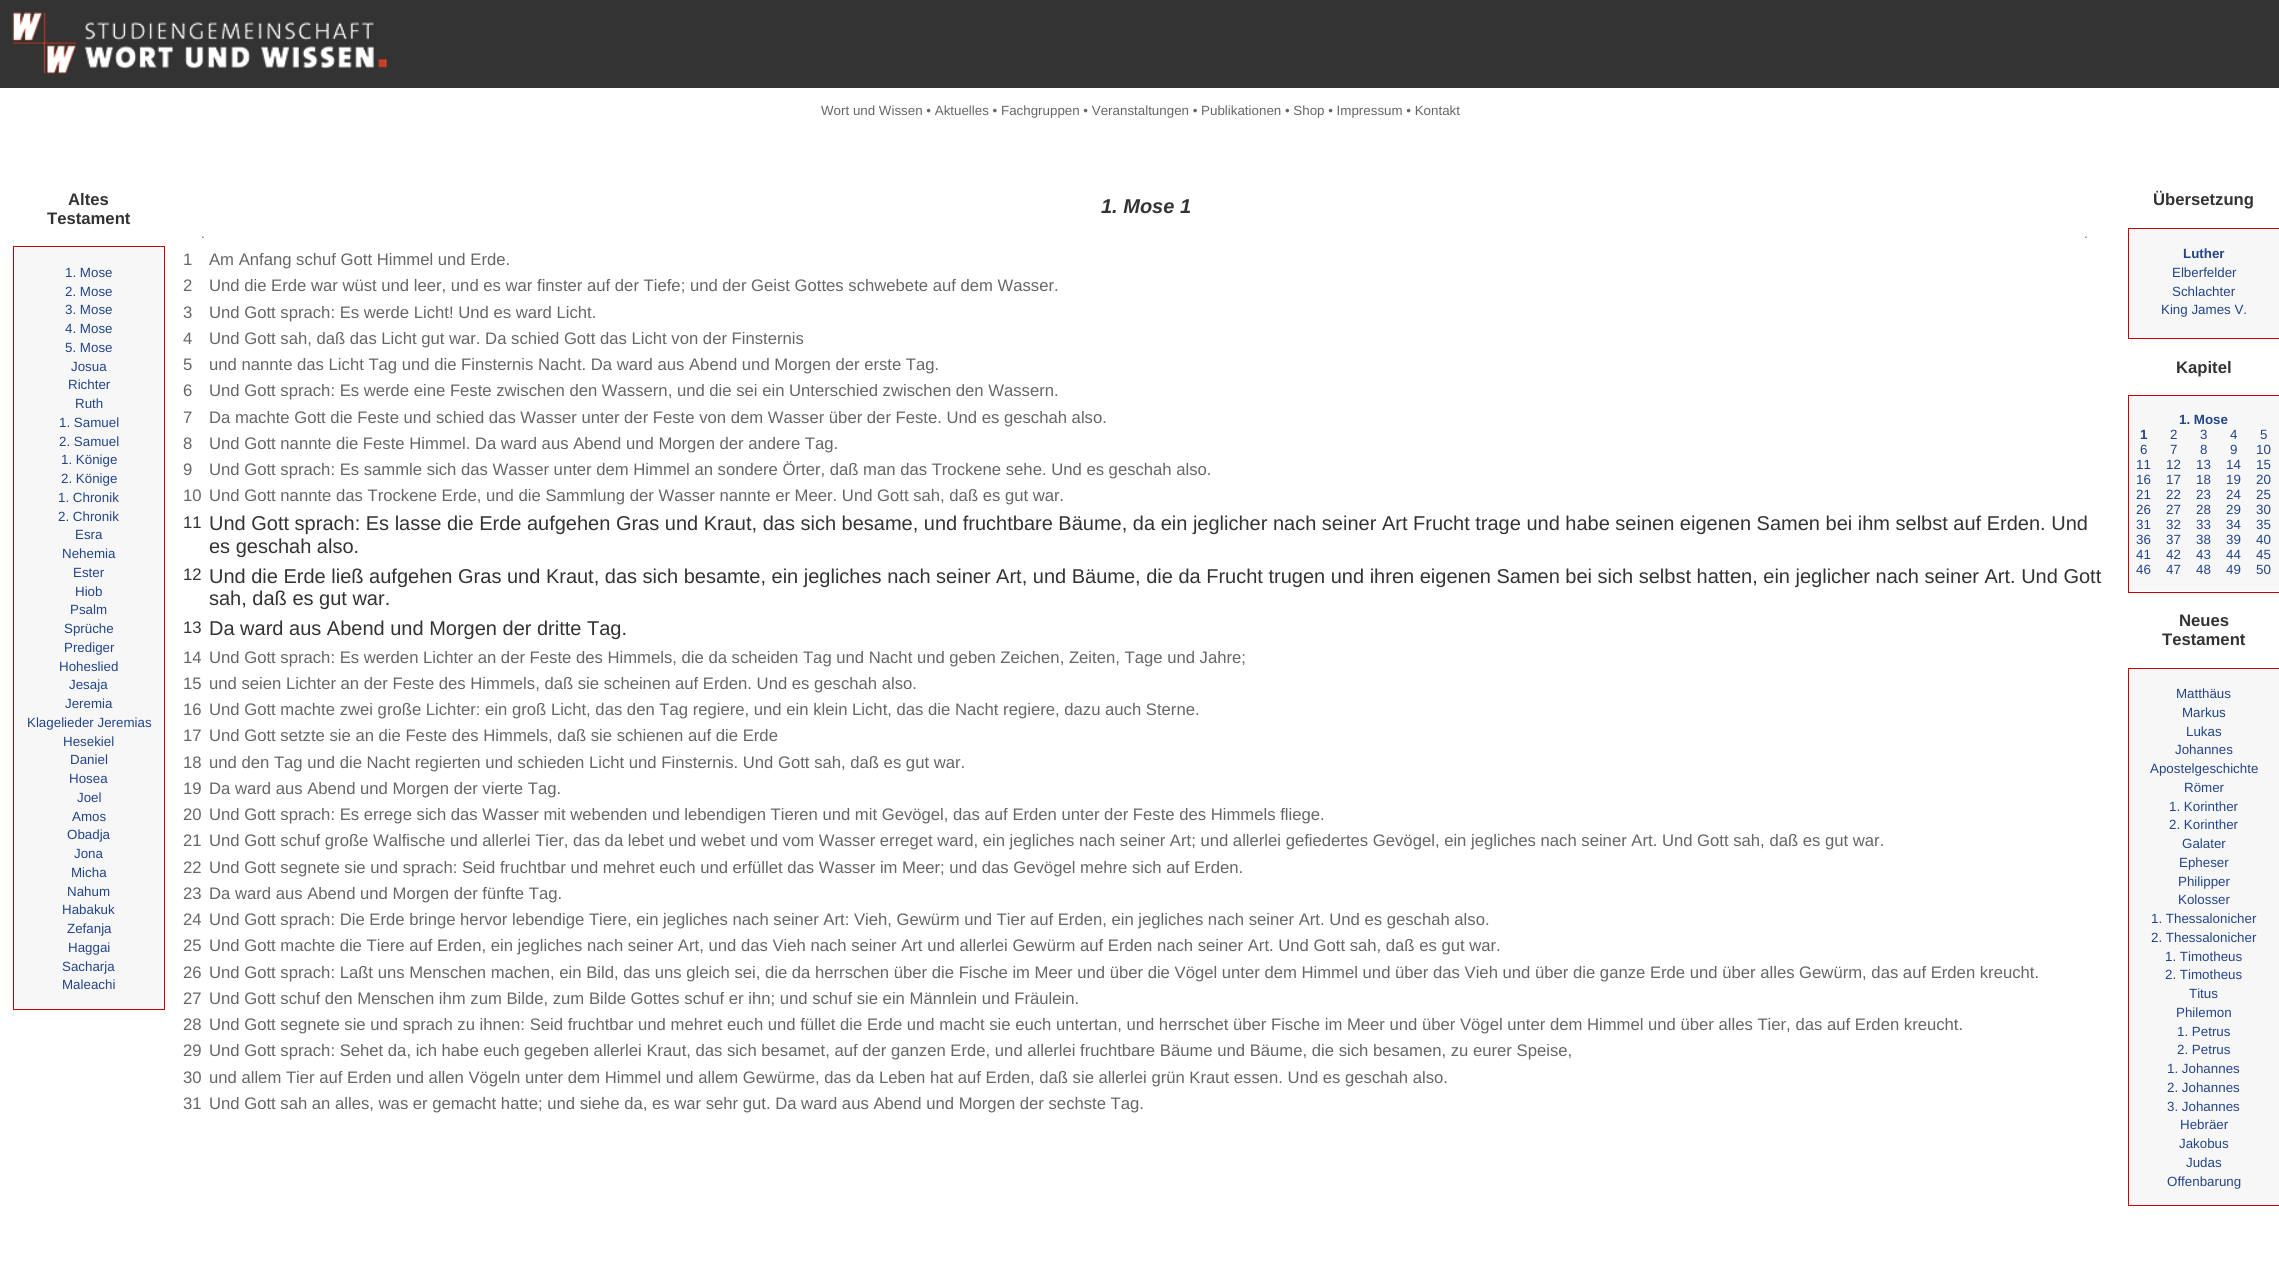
#include <cairo.h>
#include <math.h>
#include <stddef.h>


static void picture(cairo_t *cr, const char *path, double x, double y, double w, double h) {
    cairo_surface_t *image = cairo_image_surface_create_from_png(path);
    cairo_save(cr);
    cairo_set_source_surface(cr, image, x, y);
    cairo_rectangle(cr, x, y, w, h);
    cairo_fill(cr);
    cairo_restore(cr);
    cairo_surface_destroy(image);
}

int main(void) {
    cairo_surface_t *surface = cairo_image_surface_create(CAIRO_FORMAT_RGB24, 2279, 1287);
    cairo_t *cr = cairo_create(surface);
    cairo_font_options_t *options = cairo_font_options_create();
    cairo_font_options_set_hint_metrics(options, CAIRO_HINT_METRICS_OFF);
    cairo_font_options_set_hint_style(options, CAIRO_HINT_STYLE_NONE);
    cairo_set_font_options(cr, options);
    cairo_set_miter_limit(cr, 4);
    cairo_set_source_rgb(cr, 1, 1, 1);
    cairo_paint(cr);
    cairo_set_source_rgb(cr, 0.2, 0.2, 0.2);
    cairo_rectangle(cr, 0, 0, 2279, 88);
    cairo_fill(cr);
    picture(cr, "img1.png", 12, 12, 376, 62);
    cairo_select_font_face(cr, "Liberation Sans", CAIRO_FONT_SLANT_NORMAL, CAIRO_FONT_WEIGHT_NORMAL);
    cairo_set_font_size(cr, 13.35);
    cairo_set_source_rgb(cr, 0.4, 0.4, 0.4);
    cairo_move_to(cr, 821, 115);
    cairo_show_text(cr, "Wort und Wissen • Aktuelles • Fachgruppen • Veranstaltungen • Publikationen • Shop • Impressum • Kontakt");
    cairo_select_font_face(cr, "Liberation Sans", CAIRO_FONT_SLANT_NORMAL, CAIRO_FONT_WEIGHT_BOLD);
    cairo_set_font_size(cr, 16.67);
    cairo_set_source_rgb(cr, 0.2, 0.2, 0.2);
    cairo_move_to(cr, 68, 205);
    cairo_show_text(cr, "Altes");
    cairo_move_to(cr, 47, 224);
    cairo_show_text(cr, "Testament");
    cairo_rectangle(cr, 13.5, 246.5, 151, 763);
    cairo_set_source_rgb(cr, 0.8, 0, 0);
    cairo_set_line_width(cr, 1);
    cairo_stroke(cr);
    cairo_set_source_rgb(cr, 0.965, 0.965, 0.965);
    cairo_rectangle(cr, 14, 248, 150, 761);
    cairo_fill(cr);
    cairo_select_font_face(cr, "Liberation Sans", CAIRO_FONT_SLANT_NORMAL, CAIRO_FONT_WEIGHT_NORMAL);
    cairo_set_font_size(cr, 13.35);
    cairo_set_source_rgb(cr, 0.133, 0.267, 0.533);
    cairo_move_to(cr, 65, 277);
    cairo_show_text(cr, "1. Mose");
    cairo_move_to(cr, 65, 296);
    cairo_show_text(cr, "2. Mose");
    cairo_move_to(cr, 65, 314);
    cairo_show_text(cr, "3. Mose");
    cairo_move_to(cr, 65, 333);
    cairo_show_text(cr, "4. Mose");
    cairo_move_to(cr, 65, 352);
    cairo_show_text(cr, "5. Mose");
    cairo_move_to(cr, 71, 371);
    cairo_show_text(cr, "Josua");
    cairo_move_to(cr, 68, 389);
    cairo_show_text(cr, "Richter");
    cairo_move_to(cr, 75, 408);
    cairo_show_text(cr, "Ruth");
    cairo_move_to(cr, 59, 427);
    cairo_show_text(cr, "1. Samuel");
    cairo_move_to(cr, 59, 446);
    cairo_show_text(cr, "2. Samuel");
    cairo_move_to(cr, 61, 464);
    cairo_show_text(cr, "1. Könige");
    cairo_move_to(cr, 61, 483);
    cairo_show_text(cr, "2. Könige");
    cairo_move_to(cr, 58, 502);
    cairo_show_text(cr, "1. Chronik");
    cairo_move_to(cr, 58, 521);
    cairo_show_text(cr, "2. Chronik");
    cairo_move_to(cr, 75, 539);
    cairo_show_text(cr, "Esra");
    cairo_move_to(cr, 62, 558);
    cairo_show_text(cr, "Nehemia");
    cairo_move_to(cr, 73, 577);
    cairo_show_text(cr, "Ester");
    cairo_move_to(cr, 75, 596);
    cairo_show_text(cr, "Hiob");
    cairo_move_to(cr, 70, 614);
    cairo_show_text(cr, "Psalm");
    cairo_move_to(cr, 64, 633);
    cairo_show_text(cr, "Sprüche");
    cairo_move_to(cr, 64, 652);
    cairo_show_text(cr, "Prediger");
    cairo_move_to(cr, 59, 671);
    cairo_show_text(cr, "Hoheslied");
    cairo_move_to(cr, 69, 689);
    cairo_show_text(cr, "Jesaja");
    cairo_move_to(cr, 65, 708);
    cairo_show_text(cr, "Jeremia");
    cairo_move_to(cr, 27, 727);
    cairo_show_text(cr, "Klagelieder Jeremias");
    cairo_move_to(cr, 63, 746);
    cairo_show_text(cr, "Hesekiel");
    cairo_move_to(cr, 70, 764);
    cairo_show_text(cr, "Daniel");
    cairo_move_to(cr, 69, 783);
    cairo_show_text(cr, "Hosea");
    cairo_move_to(cr, 77, 802);
    cairo_show_text(cr, "Joel");
    cairo_move_to(cr, 72, 821);
    cairo_show_text(cr, "Amos");
    cairo_move_to(cr, 67, 839);
    cairo_show_text(cr, "Obadja");
    cairo_move_to(cr, 74, 858);
    cairo_show_text(cr, "Jona");
    cairo_move_to(cr, 71, 877);
    cairo_show_text(cr, "Micha");
    cairo_move_to(cr, 67, 896);
    cairo_show_text(cr, "Nahum");
    cairo_move_to(cr, 62, 914);
    cairo_show_text(cr, "Habakuk");
    cairo_move_to(cr, 67, 933);
    cairo_show_text(cr, "Zefanja");
    cairo_move_to(cr, 68, 952);
    cairo_show_text(cr, "Haggai");
    cairo_move_to(cr, 62, 971);
    cairo_show_text(cr, "Sacharja");
    cairo_move_to(cr, 62, 989);
    cairo_show_text(cr, "Maleachi");
    cairo_select_font_face(cr, "Liberation Sans", CAIRO_FONT_SLANT_ITALIC, CAIRO_FONT_WEIGHT_BOLD);
    cairo_set_font_size(cr, 20);
    cairo_set_source_rgb(cr, 0.2, 0.2, 0.2);
    cairo_move_to(cr, 1101, 213);
    cairo_show_text(cr, "1. Mose 1");
    cairo_select_font_face(cr, "Liberation Sans", CAIRO_FONT_SLANT_NORMAL, CAIRO_FONT_WEIGHT_NORMAL);
    cairo_set_font_size(cr, 13.35);
    cairo_set_source_rgb(cr, 0.4, 0.4, 0.4);
    cairo_move_to(cr, 201, 238);
    cairo_show_text(cr, ".");
    cairo_move_to(cr, 2084, 238);
    cairo_show_text(cr, ".");
    cairo_set_font_size(cr, 16.67);
    cairo_move_to(cr, 183, 265);
    cairo_show_text(cr, "1");
    cairo_move_to(cr, 209, 265);
    cairo_show_text(cr, "Am Anfang schuf Gott Himmel und Erde.");
    cairo_move_to(cr, 183, 291);
    cairo_show_text(cr, "2");
    cairo_move_to(cr, 209, 291);
    cairo_show_text(cr, "Und die Erde war wüst und leer, und es war finster auf der Tiefe; und der Geist Gottes schwebete auf dem Wasser.");
    cairo_move_to(cr, 183, 318);
    cairo_show_text(cr, "3");
    cairo_move_to(cr, 209, 318);
    cairo_show_text(cr, "Und Gott sprach: Es werde Licht! Und es ward Licht.");
    cairo_move_to(cr, 183, 344);
    cairo_show_text(cr, "4");
    cairo_move_to(cr, 209, 344);
    cairo_show_text(cr, "Und Gott sah, daß das Licht gut war. Da schied Gott das Licht von der Finsternis");
    cairo_move_to(cr, 183, 370);
    cairo_show_text(cr, "5");
    cairo_move_to(cr, 209, 370);
    cairo_show_text(cr, "und nannte das Licht Tag und die Finsternis Nacht. Da ward aus Abend und Morgen der erste Tag.");
    cairo_move_to(cr, 183, 396);
    cairo_show_text(cr, "6");
    cairo_move_to(cr, 209, 396);
    cairo_show_text(cr, "Und Gott sprach: Es werde eine Feste zwischen den Wassern, und die sei ein Unterschied zwischen den Wassern.");
    cairo_move_to(cr, 183, 423);
    cairo_show_text(cr, "7");
    cairo_move_to(cr, 209, 423);
    cairo_show_text(cr, "Da machte Gott die Feste und schied das Wasser unter der Feste von dem Wasser über der Feste. Und es geschah also.");
    cairo_move_to(cr, 183, 449);
    cairo_show_text(cr, "8");
    cairo_move_to(cr, 209, 449);
    cairo_show_text(cr, "Und Gott nannte die Feste Himmel. Da ward aus Abend und Morgen der andere Tag.");
    cairo_move_to(cr, 183, 475);
    cairo_show_text(cr, "9");
    cairo_move_to(cr, 209, 475);
    cairo_show_text(cr, "Und Gott sprach: Es sammle sich das Wasser unter dem Himmel an sondere Örter, daß man das Trockene sehe. Und es geschah also.");
    cairo_move_to(cr, 183, 501);
    cairo_show_text(cr, "10");
    cairo_move_to(cr, 209, 501);
    cairo_show_text(cr, "Und Gott nannte das Trockene Erde, und die Sammlung der Wasser nannte er Meer. Und Gott sah, daß es gut war.");
    cairo_set_source_rgb(cr, 0.2, 0.2, 0.2);
    cairo_move_to(cr, 183, 528);
    cairo_show_text(cr, "11");
    cairo_set_font_size(cr, 20);
    cairo_move_to(cr, 209, 530);
    cairo_show_text(cr, "Und Gott sprach: Es lasse die Erde aufgehen Gras und Kraut, das sich besame, und fruchtbare Bäume, da ein jeglicher nach seiner Art Frucht trage und habe seinen eigenen Samen bei ihm selbst auf Erden. Und");
    cairo_move_to(cr, 209, 553);
    cairo_show_text(cr, "es geschah also.");
    cairo_set_font_size(cr, 16.67);
    cairo_move_to(cr, 183, 580);
    cairo_show_text(cr, "12");
    cairo_set_font_size(cr, 20);
    cairo_move_to(cr, 209, 583);
    cairo_show_text(cr, "Und die Erde ließ aufgehen Gras und Kraut, das sich besamte, ein jegliches nach seiner Art, und Bäume, die da Frucht trugen und ihren eigenen Samen bei sich selbst hatten, ein jeglicher nach seiner Art. Und Gott");
    cairo_move_to(cr, 209, 605);
    cairo_show_text(cr, "sah, daß es gut war.");
    cairo_set_font_size(cr, 16.67);
    cairo_move_to(cr, 183, 633);
    cairo_show_text(cr, "13");
    cairo_set_font_size(cr, 20);
    cairo_move_to(cr, 209, 635);
    cairo_show_text(cr, "Da ward aus Abend und Morgen der dritte Tag.");
    cairo_set_font_size(cr, 16.67);
    cairo_set_source_rgb(cr, 0.4, 0.4, 0.4);
    cairo_move_to(cr, 183, 663);
    cairo_show_text(cr, "14");
    cairo_move_to(cr, 209, 663);
    cairo_show_text(cr, "Und Gott sprach: Es werden Lichter an der Feste des Himmels, die da scheiden Tag und Nacht und geben Zeichen, Zeiten, Tage und Jahre;");
    cairo_move_to(cr, 183, 689);
    cairo_show_text(cr, "15");
    cairo_move_to(cr, 209, 689);
    cairo_show_text(cr, "und seien Lichter an der Feste des Himmels, daß sie scheinen auf Erden. Und es geschah also.");
    cairo_move_to(cr, 183, 715);
    cairo_show_text(cr, "16");
    cairo_move_to(cr, 209, 715);
    cairo_show_text(cr, "Und Gott machte zwei große Lichter: ein groß Licht, das den Tag regiere, und ein klein Licht, das die Nacht regiere, dazu auch Sterne.");
    cairo_move_to(cr, 183, 741);
    cairo_show_text(cr, "17");
    cairo_move_to(cr, 209, 741);
    cairo_show_text(cr, "Und Gott setzte sie an die Feste des Himmels, daß sie schienen auf die Erde");
    cairo_move_to(cr, 183, 768);
    cairo_show_text(cr, "18");
    cairo_move_to(cr, 209, 768);
    cairo_show_text(cr, "und den Tag und die Nacht regierten und schieden Licht und Finsternis. Und Gott sah, daß es gut war.");
    cairo_move_to(cr, 183, 794);
    cairo_show_text(cr, "19");
    cairo_move_to(cr, 209, 794);
    cairo_show_text(cr, "Da ward aus Abend und Morgen der vierte Tag.");
    cairo_move_to(cr, 183, 820);
    cairo_show_text(cr, "20");
    cairo_move_to(cr, 209, 820);
    cairo_show_text(cr, "Und Gott sprach: Es errege sich das Wasser mit webenden und lebendigen Tieren und mit Gevögel, das auf Erden unter der Feste des Himmels fliege.");
    cairo_move_to(cr, 183, 846);
    cairo_show_text(cr, "21");
    cairo_move_to(cr, 209, 846);
    cairo_show_text(cr, "Und Gott schuf große Walfische und allerlei Tier, das da lebet und webet und vom Wasser erreget ward, ein jegliches nach seiner Art; und allerlei gefiedertes Gevögel, ein jegliches nach seiner Art. Und Gott sah, daß es gut war.");
    cairo_move_to(cr, 183, 873);
    cairo_show_text(cr, "22");
    cairo_move_to(cr, 209, 873);
    cairo_show_text(cr, "Und Gott segnete sie und sprach: Seid fruchtbar und mehret euch und erfüllet das Wasser im Meer; und das Gevögel mehre sich auf Erden.");
    cairo_move_to(cr, 183, 899);
    cairo_show_text(cr, "23");
    cairo_move_to(cr, 209, 899);
    cairo_show_text(cr, "Da ward aus Abend und Morgen der fünfte Tag.");
    cairo_move_to(cr, 183, 925);
    cairo_show_text(cr, "24");
    cairo_move_to(cr, 209, 925);
    cairo_show_text(cr, "Und Gott sprach: Die Erde bringe hervor lebendige Tiere, ein jegliches nach seiner Art: Vieh, Gewürm und Tier auf Erden, ein jegliches nach seiner Art. Und es geschah also.");
    cairo_move_to(cr, 183, 951);
    cairo_show_text(cr, "25");
    cairo_move_to(cr, 209, 951);
    cairo_show_text(cr, "Und Gott machte die Tiere auf Erden, ein jegliches nach seiner Art, und das Vieh nach seiner Art und allerlei Gewürm auf Erden nach seiner Art. Und Gott sah, daß es gut war.");
    cairo_move_to(cr, 183, 978);
    cairo_show_text(cr, "26");
    cairo_move_to(cr, 209, 978);
    cairo_show_text(cr, "Und Gott sprach: Laßt uns Menschen machen, ein Bild, das uns gleich sei, die da herrschen über die Fische im Meer und über die Vögel unter dem Himmel und über das Vieh und über die ganze Erde und über alles Gewürm, das auf Erden kreucht.");
    cairo_move_to(cr, 183, 1004);
    cairo_show_text(cr, "27");
    cairo_move_to(cr, 209, 1004);
    cairo_show_text(cr, "Und Gott schuf den Menschen ihm zum Bilde, zum Bilde Gottes schuf er ihn; und schuf sie ein Männlein und Fräulein.");
    cairo_move_to(cr, 183, 1030);
    cairo_show_text(cr, "28");
    cairo_move_to(cr, 209, 1030);
    cairo_show_text(cr, "Und Gott segnete sie und sprach zu ihnen: Seid fruchtbar und mehret euch und füllet die Erde und macht sie euch untertan, und herrschet über Fische im Meer und über Vögel unter dem Himmel und über alles Tier, das auf Erden kreucht.");
    cairo_move_to(cr, 183, 1056);
    cairo_show_text(cr, "29");
    cairo_move_to(cr, 209, 1056);
    cairo_show_text(cr, "Und Gott sprach: Sehet da, ich habe euch gegeben allerlei Kraut, das sich besamet, auf der ganzen Erde, und allerlei fruchtbare Bäume und Bäume, die sich besamen, zu eurer Speise,");
    cairo_move_to(cr, 183, 1083);
    cairo_show_text(cr, "30");
    cairo_move_to(cr, 209, 1083);
    cairo_show_text(cr, "und allem Tier auf Erden und allen Vögeln unter dem Himmel und allem Gewürme, das da Leben hat auf Erden, daß sie allerlei grün Kraut essen. Und es geschah also.");
    cairo_move_to(cr, 183, 1109);
    cairo_show_text(cr, "31");
    cairo_move_to(cr, 209, 1109);
    cairo_show_text(cr, "Und Gott sah an alles, was er gemacht hatte; und siehe da, es war sehr gut. Da ward aus Abend und Morgen der sechste Tag.");
    cairo_select_font_face(cr, "Liberation Sans", CAIRO_FONT_SLANT_NORMAL, CAIRO_FONT_WEIGHT_BOLD);
    cairo_set_source_rgb(cr, 0.2, 0.2, 0.2);
    cairo_move_to(cr, 2153, 205);
    cairo_show_text(cr, "Übersetzung");
    cairo_rectangle(cr, 2128.5, 228.5, 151, 110);
    cairo_set_source_rgb(cr, 0.8, 0, 0);
    cairo_stroke(cr);
    cairo_set_source_rgb(cr, 0.965, 0.965, 0.965);
    cairo_rectangle(cr, 2129, 229, 150, 109);
    cairo_fill(cr);
    cairo_set_font_size(cr, 13.35);
    cairo_set_source_rgb(cr, 0.133, 0.267, 0.533);
    cairo_move_to(cr, 2183, 258);
    cairo_show_text(cr, "Luther");
    cairo_select_font_face(cr, "Liberation Sans", CAIRO_FONT_SLANT_NORMAL, CAIRO_FONT_WEIGHT_NORMAL);
    cairo_move_to(cr, 2172, 277);
    cairo_show_text(cr, "Elberfelder");
    cairo_move_to(cr, 2172, 296);
    cairo_show_text(cr, "Schlachter");
    cairo_move_to(cr, 2161, 314);
    cairo_show_text(cr, "King James V.");
    cairo_select_font_face(cr, "Liberation Sans", CAIRO_FONT_SLANT_NORMAL, CAIRO_FONT_WEIGHT_BOLD);
    cairo_set_font_size(cr, 16.67);
    cairo_set_source_rgb(cr, 0.2, 0.2, 0.2);
    cairo_move_to(cr, 2176, 373);
    cairo_show_text(cr, "Kapitel");
    cairo_rectangle(cr, 2128.5, 395.5, 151, 197);
    cairo_set_source_rgb(cr, 0.8, 0, 0);
    cairo_stroke(cr);
    cairo_set_source_rgb(cr, 0.965, 0.965, 0.965);
    cairo_rectangle(cr, 2129, 396, 150, 195);
    cairo_fill(cr);
    cairo_set_font_size(cr, 13.35);
    cairo_set_source_rgb(cr, 0.133, 0.267, 0.533);
    cairo_move_to(cr, 2179, 424);
    cairo_show_text(cr, "1. Mose");
    cairo_move_to(cr, 2140, 439);
    cairo_show_text(cr, "1");
    cairo_select_font_face(cr, "Liberation Sans", CAIRO_FONT_SLANT_NORMAL, CAIRO_FONT_WEIGHT_NORMAL);
    cairo_move_to(cr, 2170, 439);
    cairo_show_text(cr, "2");
    cairo_move_to(cr, 2200, 439);
    cairo_show_text(cr, "3");
    cairo_move_to(cr, 2230, 439);
    cairo_show_text(cr, "4");
    cairo_move_to(cr, 2260, 439);
    cairo_show_text(cr, "5");
    cairo_move_to(cr, 2140, 454);
    cairo_show_text(cr, "6");
    cairo_move_to(cr, 2170, 454);
    cairo_show_text(cr, "7");
    cairo_move_to(cr, 2200, 454);
    cairo_show_text(cr, "8");
    cairo_move_to(cr, 2230, 454);
    cairo_show_text(cr, "9");
    cairo_move_to(cr, 2256, 454);
    cairo_show_text(cr, "10");
    cairo_move_to(cr, 2136, 469);
    cairo_show_text(cr, "11");
    cairo_move_to(cr, 2166, 469);
    cairo_show_text(cr, "12");
    cairo_move_to(cr, 2196, 469);
    cairo_show_text(cr, "13");
    cairo_move_to(cr, 2226, 469);
    cairo_show_text(cr, "14");
    cairo_move_to(cr, 2256, 469);
    cairo_show_text(cr, "15");
    cairo_move_to(cr, 2136, 484);
    cairo_show_text(cr, "16");
    cairo_move_to(cr, 2166, 484);
    cairo_show_text(cr, "17");
    cairo_move_to(cr, 2196, 484);
    cairo_show_text(cr, "18");
    cairo_move_to(cr, 2226, 484);
    cairo_show_text(cr, "19");
    cairo_move_to(cr, 2256, 484);
    cairo_show_text(cr, "20");
    cairo_move_to(cr, 2136, 499);
    cairo_show_text(cr, "21");
    cairo_move_to(cr, 2166, 499);
    cairo_show_text(cr, "22");
    cairo_move_to(cr, 2196, 499);
    cairo_show_text(cr, "23");
    cairo_move_to(cr, 2226, 499);
    cairo_show_text(cr, "24");
    cairo_move_to(cr, 2256, 499);
    cairo_show_text(cr, "25");
    cairo_move_to(cr, 2136, 514);
    cairo_show_text(cr, "26");
    cairo_move_to(cr, 2166, 514);
    cairo_show_text(cr, "27");
    cairo_move_to(cr, 2196, 514);
    cairo_show_text(cr, "28");
    cairo_move_to(cr, 2226, 514);
    cairo_show_text(cr, "29");
    cairo_move_to(cr, 2256, 514);
    cairo_show_text(cr, "30");
    cairo_move_to(cr, 2136, 529);
    cairo_show_text(cr, "31");
    cairo_move_to(cr, 2166, 529);
    cairo_show_text(cr, "32");
    cairo_move_to(cr, 2196, 529);
    cairo_show_text(cr, "33");
    cairo_move_to(cr, 2226, 529);
    cairo_show_text(cr, "34");
    cairo_move_to(cr, 2256, 529);
    cairo_show_text(cr, "35");
    cairo_move_to(cr, 2136, 544);
    cairo_show_text(cr, "36");
    cairo_move_to(cr, 2166, 544);
    cairo_show_text(cr, "37");
    cairo_move_to(cr, 2196, 544);
    cairo_show_text(cr, "38");
    cairo_move_to(cr, 2226, 544);
    cairo_show_text(cr, "39");
    cairo_move_to(cr, 2256, 544);
    cairo_show_text(cr, "40");
    cairo_move_to(cr, 2136, 559);
    cairo_show_text(cr, "41");
    cairo_move_to(cr, 2166, 559);
    cairo_show_text(cr, "42");
    cairo_move_to(cr, 2196, 559);
    cairo_show_text(cr, "43");
    cairo_move_to(cr, 2226, 559);
    cairo_show_text(cr, "44");
    cairo_move_to(cr, 2256, 559);
    cairo_show_text(cr, "45");
    cairo_move_to(cr, 2136, 574);
    cairo_show_text(cr, "46");
    cairo_move_to(cr, 2166, 574);
    cairo_show_text(cr, "47");
    cairo_move_to(cr, 2196, 574);
    cairo_show_text(cr, "48");
    cairo_move_to(cr, 2226, 574);
    cairo_show_text(cr, "49");
    cairo_move_to(cr, 2256, 574);
    cairo_show_text(cr, "50");
    cairo_select_font_face(cr, "Liberation Sans", CAIRO_FONT_SLANT_NORMAL, CAIRO_FONT_WEIGHT_BOLD);
    cairo_set_font_size(cr, 16.67);
    cairo_set_source_rgb(cr, 0.2, 0.2, 0.2);
    cairo_move_to(cr, 2179, 626);
    cairo_show_text(cr, "Neues");
    cairo_move_to(cr, 2162, 645);
    cairo_show_text(cr, "Testament");
    cairo_rectangle(cr, 2128.5, 668.5, 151, 537);
    cairo_set_source_rgb(cr, 0.8, 0, 0);
    cairo_stroke(cr);
    cairo_set_source_rgb(cr, 0.965, 0.965, 0.965);
    cairo_rectangle(cr, 2129, 669, 150, 536);
    cairo_fill(cr);
    cairo_select_font_face(cr, "Liberation Sans", CAIRO_FONT_SLANT_NORMAL, CAIRO_FONT_WEIGHT_NORMAL);
    cairo_set_font_size(cr, 13.35);
    cairo_set_source_rgb(cr, 0.133, 0.267, 0.533);
    cairo_move_to(cr, 2176, 698);
    cairo_show_text(cr, "Matthäus");
    cairo_move_to(cr, 2182, 717);
    cairo_show_text(cr, "Markus");
    cairo_move_to(cr, 2186, 736);
    cairo_show_text(cr, "Lukas");
    cairo_move_to(cr, 2175, 754);
    cairo_show_text(cr, "Johannes");
    cairo_move_to(cr, 2150, 773);
    cairo_show_text(cr, "Apostelgeschichte");
    cairo_move_to(cr, 2184, 792);
    cairo_show_text(cr, "Römer");
    cairo_move_to(cr, 2169, 811);
    cairo_show_text(cr, "1. Korinther");
    cairo_move_to(cr, 2169, 829);
    cairo_show_text(cr, "2. Korinther");
    cairo_move_to(cr, 2182, 848);
    cairo_show_text(cr, "Galater");
    cairo_move_to(cr, 2179, 867);
    cairo_show_text(cr, "Epheser");
    cairo_move_to(cr, 2178, 886);
    cairo_show_text(cr, "Philipper");
    cairo_move_to(cr, 2178, 904);
    cairo_show_text(cr, "Kolosser");
    cairo_move_to(cr, 2151, 923);
    cairo_show_text(cr, "1. Thessalonicher");
    cairo_move_to(cr, 2151, 942);
    cairo_show_text(cr, "2. Thessalonicher");
    cairo_move_to(cr, 2165, 961);
    cairo_show_text(cr, "1. Timotheus");
    cairo_move_to(cr, 2165, 979);
    cairo_show_text(cr, "2. Timotheus");
    cairo_move_to(cr, 2189, 998);
    cairo_show_text(cr, "Titus");
    cairo_move_to(cr, 2176, 1017);
    cairo_show_text(cr, "Philemon");
    cairo_move_to(cr, 2177, 1036);
    cairo_show_text(cr, "1. Petrus");
    cairo_move_to(cr, 2177, 1054);
    cairo_show_text(cr, "2. Petrus");
    cairo_move_to(cr, 2167, 1073);
    cairo_show_text(cr, "1. Johannes");
    cairo_move_to(cr, 2167, 1092);
    cairo_show_text(cr, "2. Johannes");
    cairo_move_to(cr, 2167, 1111);
    cairo_show_text(cr, "3. Johannes");
    cairo_move_to(cr, 2180, 1129);
    cairo_show_text(cr, "Hebräer");
    cairo_move_to(cr, 2179, 1148);
    cairo_show_text(cr, "Jakobus");
    cairo_move_to(cr, 2186, 1167);
    cairo_show_text(cr, "Judas");
    cairo_move_to(cr, 2167, 1186);
    cairo_show_text(cr, "Offenbarung");
    cairo_surface_write_to_png(surface, "page.png");
    cairo_font_options_destroy(options);
    cairo_destroy(cr);
    cairo_surface_destroy(surface);
    return 0;
}
